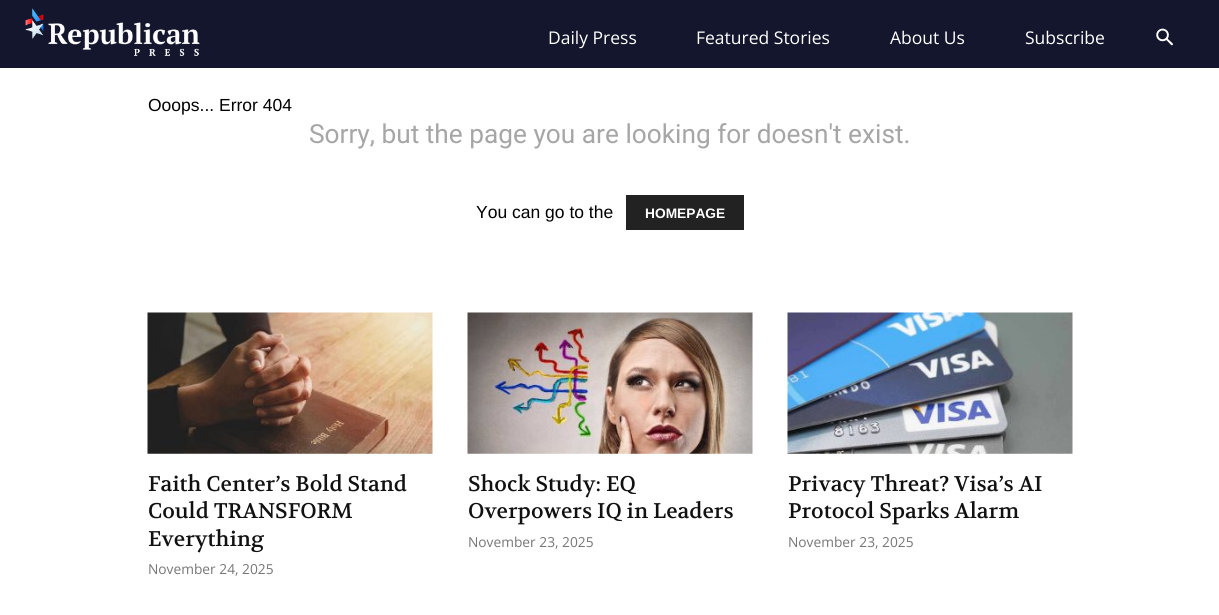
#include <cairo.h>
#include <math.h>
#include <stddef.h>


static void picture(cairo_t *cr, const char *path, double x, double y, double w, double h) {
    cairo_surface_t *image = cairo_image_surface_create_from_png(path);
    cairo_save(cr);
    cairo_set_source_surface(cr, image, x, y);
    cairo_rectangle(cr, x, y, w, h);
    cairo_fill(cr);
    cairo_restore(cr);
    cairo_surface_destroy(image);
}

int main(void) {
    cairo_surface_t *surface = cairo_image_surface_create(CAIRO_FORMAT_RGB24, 1219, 615);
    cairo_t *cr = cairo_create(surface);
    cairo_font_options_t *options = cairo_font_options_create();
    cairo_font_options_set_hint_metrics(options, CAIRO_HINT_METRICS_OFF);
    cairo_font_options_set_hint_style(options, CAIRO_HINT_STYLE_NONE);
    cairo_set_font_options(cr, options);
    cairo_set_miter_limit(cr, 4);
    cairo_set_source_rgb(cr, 1, 1, 1);
    cairo_paint(cr);
    cairo_set_source_rgb(cr, 0.078, 0.086, 0.173);
    cairo_rectangle(cr, 0, 0, 1219, 68);
    cairo_fill(cr);
    picture(cr, "img1.png", 25, 8, 175, 49);
    cairo_select_font_face(cr, "Open Sans", CAIRO_FONT_SLANT_NORMAL, CAIRO_FONT_WEIGHT_NORMAL);
    cairo_set_font_size(cr, 17.5);
    cairo_set_source_rgb(cr, 1, 1, 1);
    cairo_move_to(cr, 548, 44);
    cairo_show_text(cr, "Daily Press");
    cairo_move_to(cr, 696, 44);
    cairo_show_text(cr, "Featured Stories");
    cairo_move_to(cr, 890, 44);
    cairo_show_text(cr, "About Us");
    cairo_move_to(cr, 1025, 44);
    cairo_show_text(cr, "Subscribe");
    picture(cr, "img2.png", 1156, 28, 17, 18);
    cairo_select_font_face(cr, "Liberation Sans", CAIRO_FONT_SLANT_NORMAL, CAIRO_FONT_WEIGHT_NORMAL);
    cairo_set_source_rgb(cr, 0, 0, 0);
    cairo_move_to(cr, 148, 111);
    cairo_show_text(cr, "Ooops... Error 404");
    cairo_select_font_face(cr, "Roboto", CAIRO_FONT_SLANT_NORMAL, CAIRO_FONT_WEIGHT_NORMAL);
    cairo_set_font_size(cr, 26.25);
    cairo_set_source_rgb(cr, 0.651, 0.651, 0.651);
    cairo_move_to(cr, 309, 143);
    cairo_show_text(cr, "Sorry, but the page you are looking for doesn't exist.");
    cairo_select_font_face(cr, "Liberation Sans", CAIRO_FONT_SLANT_NORMAL, CAIRO_FONT_WEIGHT_NORMAL);
    cairo_set_font_size(cr, 17.5);
    cairo_set_source_rgb(cr, 0, 0, 0);
    cairo_move_to(cr, 476, 218);
    cairo_show_text(cr, "You can go to the");
    cairo_set_source_rgb(cr, 0.133, 0.133, 0.133);
    cairo_rectangle(cr, 626, 195, 118, 35);
    cairo_fill(cr);
    cairo_select_font_face(cr, "Liberation Sans", CAIRO_FONT_SLANT_NORMAL, CAIRO_FONT_WEIGHT_BOLD);
    cairo_set_font_size(cr, 13.75);
    cairo_set_source_rgb(cr, 1, 1, 1);
    cairo_move_to(cr, 645, 218);
    cairo_show_text(cr, "HOMEPAGE");
    picture(cr, "img3.png", 147, 312, 286, 142);
    cairo_select_font_face(cr, "Volkhov", CAIRO_FONT_SLANT_NORMAL, CAIRO_FONT_WEIGHT_NORMAL);
    cairo_set_font_size(cr, 21.25);
    cairo_set_source_rgb(cr, 0.067, 0.067, 0.067);
    cairo_move_to(cr, 148, 491);
    cairo_show_text(cr, "Faith Center’s Bold Stand");
    cairo_move_to(cr, 148, 518);
    cairo_show_text(cr, "Could TRANSFORM");
    cairo_move_to(cr, 148, 546);
    cairo_show_text(cr, "Everything");
    cairo_select_font_face(cr, "Open Sans", CAIRO_FONT_SLANT_NORMAL, CAIRO_FONT_WEIGHT_NORMAL);
    cairo_set_font_size(cr, 13.75);
    cairo_set_source_rgb(cr, 0.463, 0.463, 0.463);
    cairo_move_to(cr, 148, 574);
    cairo_show_text(cr, "November 24, 2025");
    picture(cr, "img4.png", 467, 312, 286, 142);
    cairo_select_font_face(cr, "Volkhov", CAIRO_FONT_SLANT_NORMAL, CAIRO_FONT_WEIGHT_NORMAL);
    cairo_set_font_size(cr, 21.25);
    cairo_set_source_rgb(cr, 0.067, 0.067, 0.067);
    cairo_move_to(cr, 468, 491);
    cairo_show_text(cr, "Shock Study: EQ");
    cairo_move_to(cr, 468, 518);
    cairo_show_text(cr, "Overpowers IQ in Leaders");
    cairo_select_font_face(cr, "Open Sans", CAIRO_FONT_SLANT_NORMAL, CAIRO_FONT_WEIGHT_NORMAL);
    cairo_set_font_size(cr, 13.75);
    cairo_set_source_rgb(cr, 0.463, 0.463, 0.463);
    cairo_move_to(cr, 468, 547);
    cairo_show_text(cr, "November 23, 2025");
    picture(cr, "img5.png", 787, 312, 286, 142);
    cairo_select_font_face(cr, "Volkhov", CAIRO_FONT_SLANT_NORMAL, CAIRO_FONT_WEIGHT_NORMAL);
    cairo_set_font_size(cr, 21.25);
    cairo_set_source_rgb(cr, 0.067, 0.067, 0.067);
    cairo_move_to(cr, 788, 491);
    cairo_show_text(cr, "Privacy Threat? Visa’s AI");
    cairo_move_to(cr, 788, 518);
    cairo_show_text(cr, "Protocol Sparks Alarm");
    cairo_select_font_face(cr, "Open Sans", CAIRO_FONT_SLANT_NORMAL, CAIRO_FONT_WEIGHT_NORMAL);
    cairo_set_font_size(cr, 13.75);
    cairo_set_source_rgb(cr, 0.463, 0.463, 0.463);
    cairo_move_to(cr, 788, 547);
    cairo_show_text(cr, "November 23, 2025");
    cairo_surface_write_to_png(surface, "page.png");
    cairo_font_options_destroy(options);
    cairo_destroy(cr);
    cairo_surface_destroy(surface);
    return 0;
}
